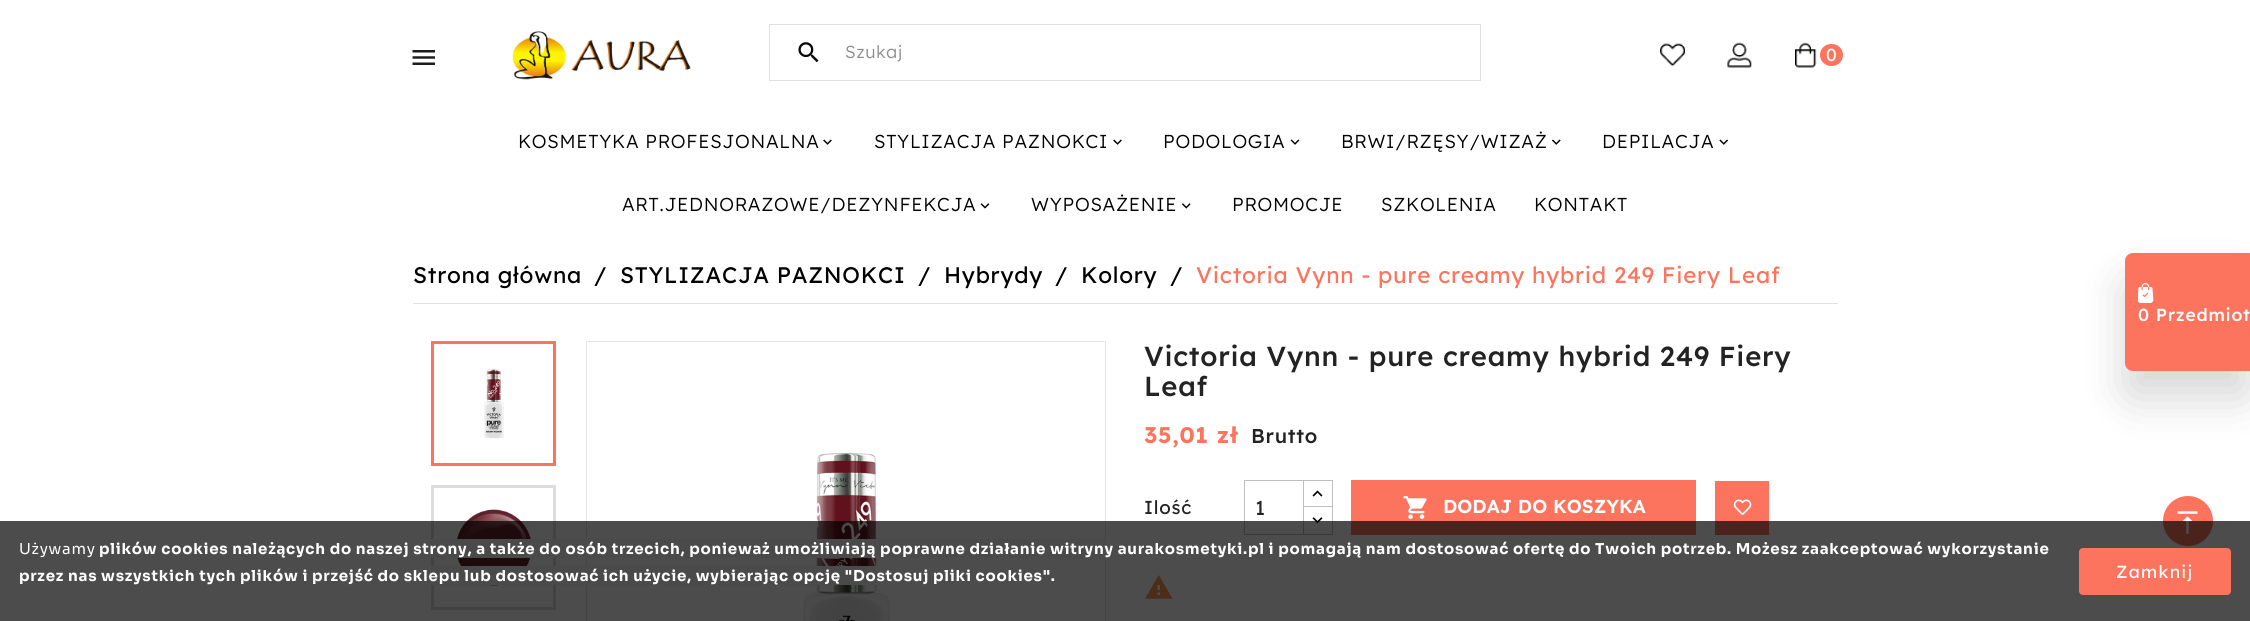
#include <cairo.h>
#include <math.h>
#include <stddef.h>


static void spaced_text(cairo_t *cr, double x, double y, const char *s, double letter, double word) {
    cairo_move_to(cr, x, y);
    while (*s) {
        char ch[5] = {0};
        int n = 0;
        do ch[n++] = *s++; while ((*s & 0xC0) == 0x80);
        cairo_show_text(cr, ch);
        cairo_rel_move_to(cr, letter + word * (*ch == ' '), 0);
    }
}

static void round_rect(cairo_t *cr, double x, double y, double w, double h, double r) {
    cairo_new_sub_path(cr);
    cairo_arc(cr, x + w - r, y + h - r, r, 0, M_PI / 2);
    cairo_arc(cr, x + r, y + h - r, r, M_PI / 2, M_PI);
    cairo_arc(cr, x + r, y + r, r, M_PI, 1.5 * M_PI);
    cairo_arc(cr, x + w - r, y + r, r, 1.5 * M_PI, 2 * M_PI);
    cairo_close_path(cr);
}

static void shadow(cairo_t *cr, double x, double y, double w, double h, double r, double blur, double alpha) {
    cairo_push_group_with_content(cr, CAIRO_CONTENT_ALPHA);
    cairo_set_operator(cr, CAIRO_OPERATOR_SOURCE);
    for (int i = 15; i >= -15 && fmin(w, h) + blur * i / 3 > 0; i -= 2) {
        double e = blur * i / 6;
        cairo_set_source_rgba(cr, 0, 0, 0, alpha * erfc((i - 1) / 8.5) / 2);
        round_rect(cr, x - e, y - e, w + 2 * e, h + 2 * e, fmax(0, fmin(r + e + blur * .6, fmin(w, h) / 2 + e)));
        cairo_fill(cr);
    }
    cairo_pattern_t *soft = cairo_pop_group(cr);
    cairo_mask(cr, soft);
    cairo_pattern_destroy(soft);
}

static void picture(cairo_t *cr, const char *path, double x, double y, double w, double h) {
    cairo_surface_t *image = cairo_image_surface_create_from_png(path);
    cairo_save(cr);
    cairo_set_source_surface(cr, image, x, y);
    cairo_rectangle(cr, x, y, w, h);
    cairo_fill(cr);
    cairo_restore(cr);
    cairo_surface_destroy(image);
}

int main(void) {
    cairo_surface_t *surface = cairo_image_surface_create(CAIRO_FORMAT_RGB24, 2250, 621);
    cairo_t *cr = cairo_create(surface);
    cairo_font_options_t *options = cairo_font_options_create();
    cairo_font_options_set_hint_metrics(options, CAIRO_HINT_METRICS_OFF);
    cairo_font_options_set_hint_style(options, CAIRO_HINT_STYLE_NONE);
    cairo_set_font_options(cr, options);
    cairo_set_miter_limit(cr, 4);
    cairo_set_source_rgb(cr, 1, 1, 1);
    cairo_paint(cr);
    picture(cr, "img1.png", 412, 50, 23, 15);
    picture(cr, "img2.png", 512, 31, 179, 49);
    cairo_rectangle(cr, 769.5, 24.5, 711, 56);
    cairo_set_source_rgb(cr, 0.878, 0.878, 0.878);
    cairo_set_line_width(cr, 1);
    cairo_stroke(cr);
    picture(cr, "img3.png", 798, 42, 21, 21);
    cairo_select_font_face(cr, "Lexend Light", CAIRO_FONT_SLANT_NORMAL, CAIRO_FONT_WEIGHT_NORMAL);
    cairo_set_font_size(cr, 17.5);
    cairo_set_source_rgb(cr, 0.549, 0.549, 0.549);
    spaced_text(cr, 845, 58, "Szukaj", 0.75, 0);
    picture(cr, "img4.png", 1660, 43, 25, 24);
    picture(cr, "img5.png", 1727, 42, 25, 26);
    picture(cr, "img6.png", 1795, 42, 22, 26);
    cairo_set_source_rgb(cr, 0.988, 0.455, 0.365);
    round_rect(cr, 1820, 44, 23, 22, 11);
    cairo_fill(cr);
    cairo_select_font_face(cr, "Lexend", CAIRO_FONT_SLANT_NORMAL, CAIRO_FONT_WEIGHT_NORMAL);
    cairo_set_source_rgb(cr, 1, 1, 1);
    spaced_text(cr, 1826, 61, "0", 0.75, 0);
    cairo_select_font_face(cr, "Lexend Light", CAIRO_FONT_SLANT_NORMAL, CAIRO_FONT_WEIGHT_NORMAL);
    cairo_set_font_size(cr, 18.75);
    cairo_set_source_rgb(cr, 0, 0, 0);
    spaced_text(cr, 518, 148, "KOSMETYKA PROFESJONALNA", 0.75, 0);
    picture(cr, "img7.png", 823, 139, 9, 6);
    spaced_text(cr, 874, 148, "STYLIZACJA PAZNOKCI", 0.75, 0);
    picture(cr, "img7.png", 1113, 139, 9, 6);
    spaced_text(cr, 1163, 148, "PODOLOGIA", 0.75, 0);
    picture(cr, "img8.png", 1290, 139, 10, 6);
    spaced_text(cr, 1341, 148, "BRWI/RZĘSY/WIZAŻ", 0.75, 0);
    picture(cr, "img9.png", 1552, 139, 9, 6);
    spaced_text(cr, 1602, 148, "DEPILACJA", 0.75, 0);
    picture(cr, "img10.png", 1719, 139, 9, 6);
    spaced_text(cr, 622, 211, "ART.JEDNORAZOWE/DEZYNFEKCJA", 0.75, 0);
    picture(cr, "img11.png", 980, 203, 10, 6);
    spaced_text(cr, 1031, 211, "WYPOSAŻENIE", 0.75, 0);
    picture(cr, "img12.png", 1182, 203, 9, 6);
    spaced_text(cr, 1232, 211, "PROMOCJE", 0.75, 0);
    spaced_text(cr, 1381, 211, "SZKOLENIA", 0.75, 0);
    spaced_text(cr, 1534, 211, "KONTAKT", 0.75, 0);
    cairo_set_source_rgb(cr, 0, 0, 0);
    shadow(cr, 2125, 279, 125, 119, 8, 22.5, 0.16);
    cairo_set_source_rgb(cr, 0.988, 0.455, 0.365);
    cairo_new_path(cr);
    cairo_move_to(cr, 2133, 253);
    cairo_line_to(cr, 2250, 253);
    cairo_line_to(cr, 2250, 371);
    cairo_line_to(cr, 2133, 371);
    cairo_curve_to(cr, 2128.5, 371, 2125, 367.5, 2125, 363);
    cairo_line_to(cr, 2125, 261);
    cairo_curve_to(cr, 2125, 256.5, 2128.5, 253, 2133, 253);
    cairo_close_path(cr);
    cairo_fill(cr);
    picture(cr, "img13.png", 2138, 283, 16, 20);
    cairo_select_font_face(cr, "Lexend Medium", CAIRO_FONT_SLANT_NORMAL, CAIRO_FONT_WEIGHT_NORMAL);
    cairo_set_font_size(cr, 17.5);
    cairo_set_source_rgb(cr, 1, 1, 1);
    spaced_text(cr, 2138, 321, "0 Przedmiot", 0.75, 0);
    cairo_set_source_rgb(cr, 0.882, 0.882, 0.882);
    cairo_rectangle(cr, 413, 303, 1425, 1);
    cairo_fill(cr);
    cairo_select_font_face(cr, "Lexend", CAIRO_FONT_SLANT_NORMAL, CAIRO_FONT_WEIGHT_NORMAL);
    cairo_set_font_size(cr, 22.5);
    cairo_set_source_rgb(cr, 0, 0, 0);
    spaced_text(cr, 413, 283, "Strona główna", 0.75, 0);
    spaced_text(cr, 594, 283, "/", 0.75, 0);
    spaced_text(cr, 620, 283, "STYLIZACJA PAZNOKCI", 0.75, 0);
    spaced_text(cr, 918, 283, "/", 0.75, 0);
    spaced_text(cr, 944, 283, "Hybrydy", 0.75, 0);
    spaced_text(cr, 1055, 283, "/", 0.75, 0);
    spaced_text(cr, 1081, 283, "Kolory", 0.75, 0);
    spaced_text(cr, 1170, 283, "/", 0.75, 0);
    cairo_set_source_rgb(cr, 0.988, 0.455, 0.365);
    spaced_text(cr, 1196, 283, "Victoria Vynn - pure creamy hybrid 249 Fiery Leaf", 0.75, 0);
    cairo_rectangle(cr, 432.5, 342.5, 122, 122);
    cairo_set_line_width(cr, 3);
    cairo_stroke(cr);
    picture(cr, "img14.png", 484, 369, 20, 70);
    cairo_rectangle(cr, 432.5, 486.5, 122, 122);
    cairo_set_source_rgb(cr, 0.867, 0.867, 0.867);
    cairo_stroke(cr);
    picture(cr, "img15.png", 457, 509, 74, 77);
    cairo_rectangle(cr, 586.5, 341.5, 519, 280);
    cairo_set_source_rgb(cr, 0.898, 0.898, 0.898);
    cairo_set_line_width(cr, 1);
    cairo_stroke(cr);
    picture(cr, "img16.png", 803, 452, 87, 169);
    cairo_select_font_face(cr, "Lexend Medium", CAIRO_FONT_SLANT_NORMAL, CAIRO_FONT_WEIGHT_NORMAL);
    cairo_set_font_size(cr, 27.5);
    cairo_set_source_rgb(cr, 0.137, 0.137, 0.137);
    spaced_text(cr, 1144, 366, "Victoria Vynn - pure creamy hybrid 249 Fiery", 0.75, 0);
    spaced_text(cr, 1144, 396, "Leaf", 0.75, 0);
    cairo_select_font_face(cr, "Lexend", CAIRO_FONT_SLANT_NORMAL, CAIRO_FONT_WEIGHT_BOLD);
    cairo_set_font_size(cr, 22.5);
    cairo_set_source_rgb(cr, 0.988, 0.455, 0.365);
    spaced_text(cr, 1144, 443, "35,01 zł", 0.75, 0);
    cairo_select_font_face(cr, "Lexend Medium", CAIRO_FONT_SLANT_NORMAL, CAIRO_FONT_WEIGHT_NORMAL);
    cairo_set_font_size(cr, 20);
    cairo_set_source_rgb(cr, 0.137, 0.137, 0.137);
    spaced_text(cr, 1251, 443, "Brutto", 0.75, 0);
    cairo_select_font_face(cr, "Lexend", CAIRO_FONT_SLANT_NORMAL, CAIRO_FONT_WEIGHT_NORMAL);
    cairo_set_font_size(cr, 18.75);
    spaced_text(cr, 1144, 514, "Ilość", 0.75, 0);
    cairo_rectangle(cr, 1303.5, 480.5, 29, 28);
    cairo_set_source_rgb(cr, 0.749, 0.749, 0.749);
    cairo_stroke(cr);
    cairo_set_source_rgb(cr, 1, 1, 1);
    cairo_rectangle(cr, 1304, 508, 28, 1);
    cairo_fill(cr);
    cairo_rectangle(cr, 1303.5, 506.5, 29, 28);
    cairo_set_source_rgb(cr, 0.749, 0.749, 0.749);
    cairo_stroke(cr);
    cairo_rectangle(cr, 1244.5, 480.5, 59, 54);
    cairo_stroke(cr);
    cairo_set_font_size(cr, 20);
    cairo_set_source_rgb(cr, 0.137, 0.137, 0.137);
    cairo_move_to(cr, 1255, 515);
    cairo_show_text(cr, "1");
    picture(cr, "img17.png", 1312, 490, 11, 7);
    picture(cr, "img18.png", 1312, 517, 11, 7);
    cairo_set_source_rgb(cr, 0.988, 0.455, 0.365);
    cairo_rectangle(cr, 1351, 480, 345, 55);
    cairo_fill(cr);
    picture(cr, "img19.png", 1403, 496, 24, 23);
    cairo_select_font_face(cr, "Lexend SemiBold", CAIRO_FONT_SLANT_NORMAL, CAIRO_FONT_WEIGHT_NORMAL);
    cairo_set_font_size(cr, 18.75);
    cairo_set_source_rgb(cr, 1, 1, 1);
    cairo_move_to(cr, 1443, 513);
    cairo_show_text(cr, "DODAJ DO KOSZYKA");
    cairo_set_source_rgb(cr, 0.988, 0.455, 0.365);
    cairo_rectangle(cr, 1715, 481, 54, 54);
    cairo_fill(cr);
    picture(cr, "img20.png", 1733, 499, 19, 16);
    picture(cr, "img21.png", 1145, 575, 28, 24);
    cairo_arc(cr, 2188, 521, 25, 0, 2 * M_PI);
    cairo_fill(cr);
    picture(cr, "img22.png", 2177, 511, 21, 23);
    cairo_set_source_rgba(cr, 0, 0, 0, 0.7);
    cairo_rectangle(cr, 0, 521, 2250, 100);
    cairo_fill(cr);
    cairo_select_font_face(cr, "Sora", CAIRO_FONT_SLANT_NORMAL, CAIRO_FONT_WEIGHT_NORMAL);
    cairo_set_font_size(cr, 15);
    cairo_set_source_rgb(cr, 1, 1, 1);
    spaced_text(cr, 19, 554, "Używamy", 0.75, 0);
    cairo_set_source_rgb(cr, 0.29, 0.29, 0.29);
    cairo_rectangle(cr, 431, 539, 675, 19);
    cairo_fill(cr);
    cairo_select_font_face(cr, "Sora", CAIRO_FONT_SLANT_NORMAL, CAIRO_FONT_WEIGHT_BOLD);
    cairo_set_source_rgb(cr, 1, 1, 1);
    spaced_text(cr, 99, 554, "plików cookies należących do naszej strony, a także do osób trzecich, ponieważ umożliwiają poprawne działanie witryny aurakosmetyki.pl i pomagają nam dostosować ofertę do Twoich potrzeb. Możesz zaakceptować wykorzystanie", 0.75, 0);
    cairo_set_source_rgb(cr, 0.29, 0.29, 0.29);
    cairo_rectangle(cr, 431, 566, 446, 19);
    cairo_fill(cr);
    cairo_set_source_rgb(cr, 1, 1, 1);
    spaced_text(cr, 19, 581, "przez nas wszystkich tych plików i przejść do sklepu lub dostosować ich użycie, wybierając opcję \"Dostosuj pliki cookies\".", 0.75, 0);
    cairo_set_source_rgb(cr, 0.988, 0.455, 0.365);
    round_rect(cr, 2079, 548, 152, 47, 4);
    cairo_fill(cr);
    cairo_select_font_face(cr, "Lexend", CAIRO_FONT_SLANT_NORMAL, CAIRO_FONT_WEIGHT_NORMAL);
    cairo_set_font_size(cr, 17.5);
    cairo_set_source_rgb(cr, 1, 1, 1);
    spaced_text(cr, 2116, 578, "Zamknij", 1.25, 0);
    cairo_surface_write_to_png(surface, "page.png");
    cairo_font_options_destroy(options);
    cairo_destroy(cr);
    cairo_surface_destroy(surface);
    return 0;
}
